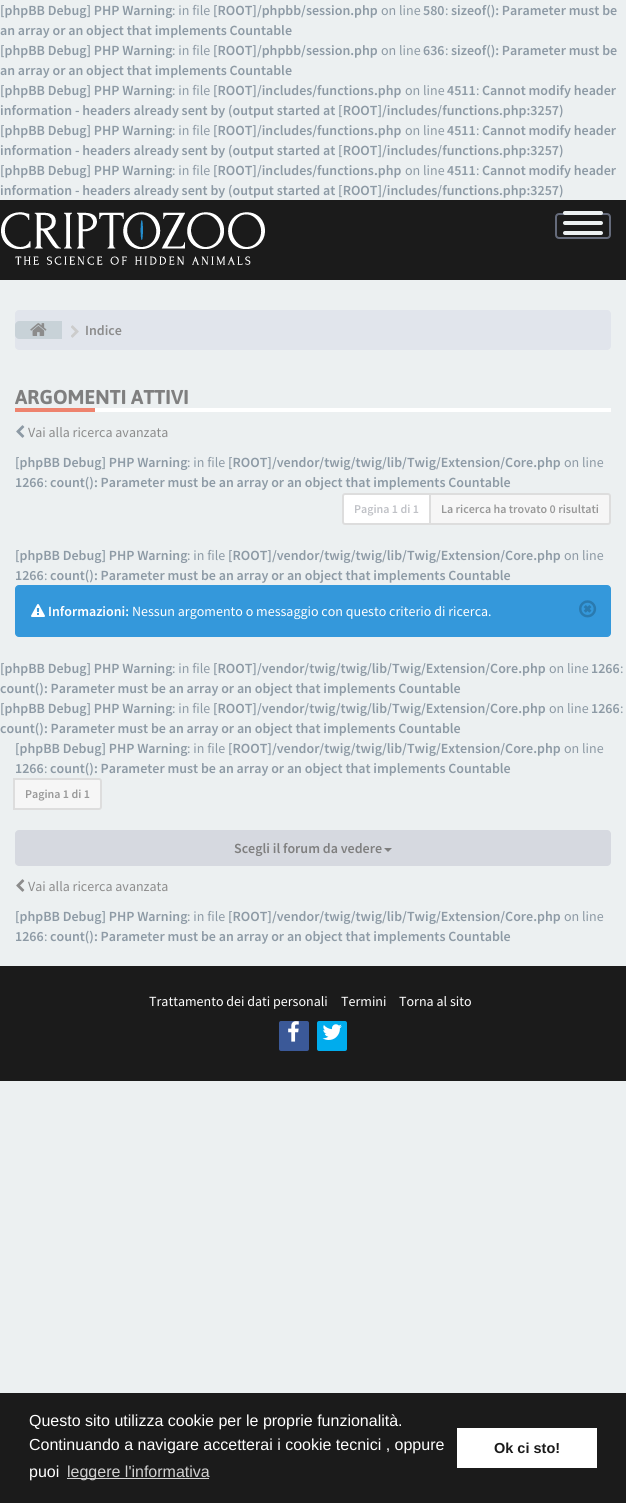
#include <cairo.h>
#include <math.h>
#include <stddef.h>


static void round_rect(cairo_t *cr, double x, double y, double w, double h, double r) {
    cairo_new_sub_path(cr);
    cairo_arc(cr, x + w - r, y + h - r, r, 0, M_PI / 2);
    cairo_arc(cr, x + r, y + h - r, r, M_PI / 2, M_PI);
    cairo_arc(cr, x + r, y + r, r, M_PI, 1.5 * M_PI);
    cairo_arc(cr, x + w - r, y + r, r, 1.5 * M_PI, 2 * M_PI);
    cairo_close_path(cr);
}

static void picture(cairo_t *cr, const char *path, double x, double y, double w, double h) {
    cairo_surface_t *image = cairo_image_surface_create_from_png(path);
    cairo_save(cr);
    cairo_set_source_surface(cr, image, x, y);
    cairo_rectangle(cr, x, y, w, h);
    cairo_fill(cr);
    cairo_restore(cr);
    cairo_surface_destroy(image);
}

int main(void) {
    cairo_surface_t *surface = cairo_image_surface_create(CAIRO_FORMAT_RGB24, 626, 1503);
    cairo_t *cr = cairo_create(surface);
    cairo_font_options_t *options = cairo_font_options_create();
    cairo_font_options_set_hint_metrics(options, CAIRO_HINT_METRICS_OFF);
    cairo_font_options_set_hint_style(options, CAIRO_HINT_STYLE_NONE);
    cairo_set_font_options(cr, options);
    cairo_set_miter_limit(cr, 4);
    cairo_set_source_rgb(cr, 0.925, 0.941, 0.945);
    cairo_paint(cr);
    cairo_select_font_face(cr, "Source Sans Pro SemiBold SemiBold", CAIRO_FONT_SLANT_NORMAL, CAIRO_FONT_WEIGHT_NORMAL);
    cairo_set_font_size(cr, 14);
    cairo_set_source_rgb(cr, 0.553, 0.604, 0.647);
    cairo_move_to(cr, 0, 15);
    cairo_show_text(cr, "[phpBB Debug] PHP Warning");
    cairo_select_font_face(cr, "Source Sans Pro", CAIRO_FONT_SLANT_NORMAL, CAIRO_FONT_WEIGHT_NORMAL);
    cairo_move_to(cr, 172, 15);
    cairo_show_text(cr, ": in file");
    cairo_select_font_face(cr, "Source Sans Pro SemiBold SemiBold", CAIRO_FONT_SLANT_NORMAL, CAIRO_FONT_WEIGHT_NORMAL);
    cairo_move_to(cr, 213, 15);
    cairo_show_text(cr, "[ROOT]/phpbb/session.php");
    cairo_select_font_face(cr, "Source Sans Pro", CAIRO_FONT_SLANT_NORMAL, CAIRO_FONT_WEIGHT_NORMAL);
    cairo_move_to(cr, 381, 15);
    cairo_show_text(cr, "on line");
    cairo_select_font_face(cr, "Source Sans Pro SemiBold SemiBold", CAIRO_FONT_SLANT_NORMAL, CAIRO_FONT_WEIGHT_NORMAL);
    cairo_move_to(cr, 423, 15);
    cairo_show_text(cr, "580");
    cairo_select_font_face(cr, "Source Sans Pro", CAIRO_FONT_SLANT_NORMAL, CAIRO_FONT_WEIGHT_NORMAL);
    cairo_move_to(cr, 445, 15);
    cairo_show_text(cr, ":");
    cairo_select_font_face(cr, "Source Sans Pro SemiBold SemiBold", CAIRO_FONT_SLANT_NORMAL, CAIRO_FONT_WEIGHT_NORMAL);
    cairo_move_to(cr, 451, 15);
    cairo_show_text(cr, "sizeof(): Parameter must be");
    cairo_move_to(cr, 0, 35);
    cairo_show_text(cr, "an array or an object that implements Countable");
    cairo_move_to(cr, 0, 55);
    cairo_show_text(cr, "[phpBB Debug] PHP Warning");
    cairo_select_font_face(cr, "Source Sans Pro", CAIRO_FONT_SLANT_NORMAL, CAIRO_FONT_WEIGHT_NORMAL);
    cairo_move_to(cr, 172, 55);
    cairo_show_text(cr, ": in file");
    cairo_select_font_face(cr, "Source Sans Pro SemiBold SemiBold", CAIRO_FONT_SLANT_NORMAL, CAIRO_FONT_WEIGHT_NORMAL);
    cairo_move_to(cr, 213, 55);
    cairo_show_text(cr, "[ROOT]/phpbb/session.php");
    cairo_select_font_face(cr, "Source Sans Pro", CAIRO_FONT_SLANT_NORMAL, CAIRO_FONT_WEIGHT_NORMAL);
    cairo_move_to(cr, 381, 55);
    cairo_show_text(cr, "on line");
    cairo_select_font_face(cr, "Source Sans Pro SemiBold SemiBold", CAIRO_FONT_SLANT_NORMAL, CAIRO_FONT_WEIGHT_NORMAL);
    cairo_move_to(cr, 423, 55);
    cairo_show_text(cr, "636");
    cairo_select_font_face(cr, "Source Sans Pro", CAIRO_FONT_SLANT_NORMAL, CAIRO_FONT_WEIGHT_NORMAL);
    cairo_move_to(cr, 445, 55);
    cairo_show_text(cr, ":");
    cairo_select_font_face(cr, "Source Sans Pro SemiBold SemiBold", CAIRO_FONT_SLANT_NORMAL, CAIRO_FONT_WEIGHT_NORMAL);
    cairo_move_to(cr, 451, 55);
    cairo_show_text(cr, "sizeof(): Parameter must be");
    cairo_move_to(cr, 0, 75);
    cairo_show_text(cr, "an array or an object that implements Countable");
    cairo_move_to(cr, 0, 95);
    cairo_show_text(cr, "[phpBB Debug] PHP Warning");
    cairo_select_font_face(cr, "Source Sans Pro", CAIRO_FONT_SLANT_NORMAL, CAIRO_FONT_WEIGHT_NORMAL);
    cairo_move_to(cr, 172, 95);
    cairo_show_text(cr, ": in file");
    cairo_select_font_face(cr, "Source Sans Pro SemiBold SemiBold", CAIRO_FONT_SLANT_NORMAL, CAIRO_FONT_WEIGHT_NORMAL);
    cairo_move_to(cr, 213, 95);
    cairo_show_text(cr, "[ROOT]/includes/functions.php");
    cairo_select_font_face(cr, "Source Sans Pro", CAIRO_FONT_SLANT_NORMAL, CAIRO_FONT_WEIGHT_NORMAL);
    cairo_move_to(cr, 405, 95);
    cairo_show_text(cr, "on line");
    cairo_select_font_face(cr, "Source Sans Pro SemiBold SemiBold", CAIRO_FONT_SLANT_NORMAL, CAIRO_FONT_WEIGHT_NORMAL);
    cairo_move_to(cr, 447, 95);
    cairo_show_text(cr, "4511");
    cairo_select_font_face(cr, "Source Sans Pro", CAIRO_FONT_SLANT_NORMAL, CAIRO_FONT_WEIGHT_NORMAL);
    cairo_move_to(cr, 476, 95);
    cairo_show_text(cr, ":");
    cairo_select_font_face(cr, "Source Sans Pro SemiBold SemiBold", CAIRO_FONT_SLANT_NORMAL, CAIRO_FONT_WEIGHT_NORMAL);
    cairo_move_to(cr, 482, 95);
    cairo_show_text(cr, "Cannot modify header");
    cairo_move_to(cr, 0, 115);
    cairo_show_text(cr, "information - headers already sent by (output started at [ROOT]/includes/functions.php:3257)");
    cairo_move_to(cr, 0, 135);
    cairo_show_text(cr, "[phpBB Debug] PHP Warning");
    cairo_select_font_face(cr, "Source Sans Pro", CAIRO_FONT_SLANT_NORMAL, CAIRO_FONT_WEIGHT_NORMAL);
    cairo_move_to(cr, 172, 135);
    cairo_show_text(cr, ": in file");
    cairo_select_font_face(cr, "Source Sans Pro SemiBold SemiBold", CAIRO_FONT_SLANT_NORMAL, CAIRO_FONT_WEIGHT_NORMAL);
    cairo_move_to(cr, 213, 135);
    cairo_show_text(cr, "[ROOT]/includes/functions.php");
    cairo_select_font_face(cr, "Source Sans Pro", CAIRO_FONT_SLANT_NORMAL, CAIRO_FONT_WEIGHT_NORMAL);
    cairo_move_to(cr, 405, 135);
    cairo_show_text(cr, "on line");
    cairo_select_font_face(cr, "Source Sans Pro SemiBold SemiBold", CAIRO_FONT_SLANT_NORMAL, CAIRO_FONT_WEIGHT_NORMAL);
    cairo_move_to(cr, 447, 135);
    cairo_show_text(cr, "4511");
    cairo_select_font_face(cr, "Source Sans Pro", CAIRO_FONT_SLANT_NORMAL, CAIRO_FONT_WEIGHT_NORMAL);
    cairo_move_to(cr, 476, 135);
    cairo_show_text(cr, ":");
    cairo_select_font_face(cr, "Source Sans Pro SemiBold SemiBold", CAIRO_FONT_SLANT_NORMAL, CAIRO_FONT_WEIGHT_NORMAL);
    cairo_move_to(cr, 482, 135);
    cairo_show_text(cr, "Cannot modify header");
    cairo_move_to(cr, 0, 155);
    cairo_show_text(cr, "information - headers already sent by (output started at [ROOT]/includes/functions.php:3257)");
    cairo_move_to(cr, 0, 175);
    cairo_show_text(cr, "[phpBB Debug] PHP Warning");
    cairo_select_font_face(cr, "Source Sans Pro", CAIRO_FONT_SLANT_NORMAL, CAIRO_FONT_WEIGHT_NORMAL);
    cairo_move_to(cr, 172, 175);
    cairo_show_text(cr, ": in file");
    cairo_select_font_face(cr, "Source Sans Pro SemiBold SemiBold", CAIRO_FONT_SLANT_NORMAL, CAIRO_FONT_WEIGHT_NORMAL);
    cairo_move_to(cr, 213, 175);
    cairo_show_text(cr, "[ROOT]/includes/functions.php");
    cairo_select_font_face(cr, "Source Sans Pro", CAIRO_FONT_SLANT_NORMAL, CAIRO_FONT_WEIGHT_NORMAL);
    cairo_move_to(cr, 405, 175);
    cairo_show_text(cr, "on line");
    cairo_select_font_face(cr, "Source Sans Pro SemiBold SemiBold", CAIRO_FONT_SLANT_NORMAL, CAIRO_FONT_WEIGHT_NORMAL);
    cairo_move_to(cr, 447, 175);
    cairo_show_text(cr, "4511");
    cairo_select_font_face(cr, "Source Sans Pro", CAIRO_FONT_SLANT_NORMAL, CAIRO_FONT_WEIGHT_NORMAL);
    cairo_move_to(cr, 476, 175);
    cairo_show_text(cr, ":");
    cairo_select_font_face(cr, "Source Sans Pro SemiBold SemiBold", CAIRO_FONT_SLANT_NORMAL, CAIRO_FONT_WEIGHT_NORMAL);
    cairo_move_to(cr, 482, 175);
    cairo_show_text(cr, "Cannot modify header");
    cairo_move_to(cr, 0, 195);
    cairo_show_text(cr, "information - headers already sent by (output started at [ROOT]/includes/functions.php:3257)");
    cairo_set_source_rgb(cr, 0.106, 0.106, 0.106);
    cairo_rectangle(cr, 0, 200, 626, 80);
    cairo_fill(cr);
    picture(cr, "img1.png", 1, 212, 264, 53);
    round_rect(cr, 556, 214, 54, 24, 3);
    cairo_set_source_rgb(cr, 0.396, 0.42, 0.482);
    cairo_stroke(cr);
    cairo_set_source_rgb(cr, 0.925, 0.941, 0.945);
    round_rect(cr, 563, 221, 40, 4, 2);
    cairo_fill(cr);
    round_rect(cr, 563, 211, 40, 4, 2);
    cairo_fill(cr);
    round_rect(cr, 563, 231, 40, 4, 2);
    cairo_fill(cr);
    cairo_set_source_rgb(cr, 0.882, 0.898, 0.922);
    round_rect(cr, 15, 310, 596, 40, 4);
    cairo_fill(cr);
    cairo_set_source_rgb(cr, 0.784, 0.824, 0.847);
    cairo_new_path(cr);
    cairo_move_to(cr, 19, 321);
    cairo_line_to(cr, 62, 321);
    cairo_line_to(cr, 62, 339);
    cairo_line_to(cr, 19, 339);
    cairo_curve_to(cr, 17, 339, 15, 337, 15, 335);
    cairo_line_to(cr, 15, 325);
    cairo_curve_to(cr, 15, 323, 17, 321, 19, 321);
    cairo_close_path(cr);
    cairo_fill(cr);
    picture(cr, "img2.png", 30, 323, 17, 13);
    picture(cr, "img3.png", 71, 325, 8, 13);
    cairo_set_source_rgb(cr, 0.549, 0.549, 0.549);
    cairo_move_to(cr, 85, 335);
    cairo_show_text(cr, "Indice");
    cairo_set_source_rgb(cr, 1, 1, 1);
    cairo_rectangle(cr, 95, 408, 516, 4);
    cairo_fill(cr);
    cairo_select_font_face(cr, "Asap", CAIRO_FONT_SLANT_NORMAL, CAIRO_FONT_WEIGHT_BOLD);
    cairo_set_font_size(cr, 20);
    cairo_set_source_rgb(cr, 0.498, 0.498, 0.498);
    cairo_move_to(cr, 15, 404);
    cairo_show_text(cr, "ARGOMENTI ATTIVI");
    cairo_set_source_rgb(cr, 0.933, 0.514, 0.431);
    cairo_rectangle(cr, 15, 408, 80, 4);
    cairo_fill(cr);
    picture(cr, "img4.png", 16, 425, 9, 13);
    cairo_select_font_face(cr, "Source Sans Pro", CAIRO_FONT_SLANT_NORMAL, CAIRO_FONT_WEIGHT_NORMAL);
    cairo_set_font_size(cr, 14);
    cairo_set_source_rgb(cr, 0.549, 0.549, 0.549);
    cairo_move_to(cr, 28, 437);
    cairo_show_text(cr, "Vai alla ricerca avanzata");
    cairo_select_font_face(cr, "Source Sans Pro SemiBold SemiBold", CAIRO_FONT_SLANT_NORMAL, CAIRO_FONT_WEIGHT_NORMAL);
    cairo_set_source_rgb(cr, 0.553, 0.604, 0.647);
    cairo_move_to(cr, 15, 467);
    cairo_show_text(cr, "[phpBB Debug] PHP Warning");
    cairo_select_font_face(cr, "Source Sans Pro", CAIRO_FONT_SLANT_NORMAL, CAIRO_FONT_WEIGHT_NORMAL);
    cairo_move_to(cr, 187, 467);
    cairo_show_text(cr, ": in file");
    cairo_select_font_face(cr, "Source Sans Pro SemiBold SemiBold", CAIRO_FONT_SLANT_NORMAL, CAIRO_FONT_WEIGHT_NORMAL);
    cairo_move_to(cr, 228, 467);
    cairo_show_text(cr, "[ROOT]/vendor/twig/twig/lib/Twig/Extension/Core.php");
    cairo_select_font_face(cr, "Source Sans Pro", CAIRO_FONT_SLANT_NORMAL, CAIRO_FONT_WEIGHT_NORMAL);
    cairo_move_to(cr, 564, 467);
    cairo_show_text(cr, "on line");
    cairo_select_font_face(cr, "Source Sans Pro SemiBold SemiBold", CAIRO_FONT_SLANT_NORMAL, CAIRO_FONT_WEIGHT_NORMAL);
    cairo_move_to(cr, 15, 487);
    cairo_show_text(cr, "1266");
    cairo_select_font_face(cr, "Source Sans Pro", CAIRO_FONT_SLANT_NORMAL, CAIRO_FONT_WEIGHT_NORMAL);
    cairo_move_to(cr, 44, 487);
    cairo_show_text(cr, ":");
    cairo_select_font_face(cr, "Source Sans Pro SemiBold SemiBold", CAIRO_FONT_SLANT_NORMAL, CAIRO_FONT_WEIGHT_NORMAL);
    cairo_move_to(cr, 50, 487);
    cairo_show_text(cr, "count(): Parameter must be an array or an object that implements Countable");
    cairo_set_source_rgb(cr, 1, 1, 1);
    cairo_new_path(cr);
    cairo_move_to(cr, 345, 494);
    cairo_line_to(cr, 430, 494);
    cairo_line_to(cr, 430, 524);
    cairo_line_to(cr, 345, 524);
    cairo_curve_to(cr, 344, 524, 343, 523, 343, 522);
    cairo_line_to(cr, 343, 496);
    cairo_curve_to(cr, 343, 495, 344, 494, 345, 494);
    cairo_close_path(cr);
    cairo_fill_preserve(cr);
    cairo_set_source_rgb(cr, 0.867, 0.867, 0.867);
    cairo_stroke(cr);
    cairo_set_font_size(cr, 12);
    cairo_set_source_rgb(cr, 0.753, 0.761, 0.78);
    cairo_move_to(cr, 354, 513);
    cairo_show_text(cr, "Pagina 1 di 1");
    cairo_set_source_rgb(cr, 0.961, 0.961, 0.961);
    cairo_new_path(cr);
    cairo_move_to(cr, 430, 494);
    cairo_line_to(cr, 608, 494);
    cairo_curve_to(cr, 609, 494, 610, 495, 610, 496);
    cairo_line_to(cr, 610, 522);
    cairo_curve_to(cr, 610, 523, 609, 524, 608, 524);
    cairo_line_to(cr, 430, 524);
    cairo_close_path(cr);
    cairo_fill_preserve(cr);
    cairo_set_source_rgb(cr, 0.867, 0.867, 0.867);
    cairo_stroke(cr);
    cairo_set_source_rgb(cr, 0.6, 0.6, 0.6);
    cairo_move_to(cr, 441, 513);
    cairo_show_text(cr, "La ricerca ha trovato 0 risultati");
    cairo_set_font_size(cr, 14);
    cairo_set_source_rgb(cr, 0.553, 0.604, 0.647);
    cairo_move_to(cr, 15, 560);
    cairo_show_text(cr, "[phpBB Debug] PHP Warning");
    cairo_select_font_face(cr, "Source Sans Pro", CAIRO_FONT_SLANT_NORMAL, CAIRO_FONT_WEIGHT_NORMAL);
    cairo_move_to(cr, 187, 560);
    cairo_show_text(cr, ": in file");
    cairo_select_font_face(cr, "Source Sans Pro SemiBold SemiBold", CAIRO_FONT_SLANT_NORMAL, CAIRO_FONT_WEIGHT_NORMAL);
    cairo_move_to(cr, 228, 560);
    cairo_show_text(cr, "[ROOT]/vendor/twig/twig/lib/Twig/Extension/Core.php");
    cairo_select_font_face(cr, "Source Sans Pro", CAIRO_FONT_SLANT_NORMAL, CAIRO_FONT_WEIGHT_NORMAL);
    cairo_move_to(cr, 564, 560);
    cairo_show_text(cr, "on line");
    cairo_select_font_face(cr, "Source Sans Pro SemiBold SemiBold", CAIRO_FONT_SLANT_NORMAL, CAIRO_FONT_WEIGHT_NORMAL);
    cairo_move_to(cr, 15, 580);
    cairo_show_text(cr, "1266");
    cairo_select_font_face(cr, "Source Sans Pro", CAIRO_FONT_SLANT_NORMAL, CAIRO_FONT_WEIGHT_NORMAL);
    cairo_move_to(cr, 44, 580);
    cairo_show_text(cr, ":");
    cairo_select_font_face(cr, "Source Sans Pro SemiBold SemiBold", CAIRO_FONT_SLANT_NORMAL, CAIRO_FONT_WEIGHT_NORMAL);
    cairo_move_to(cr, 50, 580);
    cairo_show_text(cr, "count(): Parameter must be an array or an object that implements Countable");
    cairo_set_source_rgb(cr, 0.204, 0.596, 0.859);
    round_rect(cr, 15.5, 585.5, 595, 51, 3.5);
    cairo_fill_preserve(cr);
    cairo_set_line_width(cr, 1);
    cairo_stroke(cr);
    picture(cr, "img5.png", 31, 604, 14, 13);
    cairo_set_source_rgb(cr, 1, 1, 1);
    cairo_move_to(cr, 48, 616);
    cairo_show_text(cr, "Informazioni:");
    cairo_select_font_face(cr, "Source Sans Pro", CAIRO_FONT_SLANT_NORMAL, CAIRO_FONT_WEIGHT_NORMAL);
    cairo_move_to(cr, 132, 616);
    cairo_show_text(cr, "Nessun argomento o messaggio con questo criterio di ricerca.");
    picture(cr, "img6.png", 579, 600, 18, 18);
    cairo_select_font_face(cr, "Source Sans Pro SemiBold SemiBold", CAIRO_FONT_SLANT_NORMAL, CAIRO_FONT_WEIGHT_NORMAL);
    cairo_set_source_rgb(cr, 0.553, 0.604, 0.647);
    cairo_move_to(cr, 0, 673);
    cairo_show_text(cr, "[phpBB Debug] PHP Warning");
    cairo_select_font_face(cr, "Source Sans Pro", CAIRO_FONT_SLANT_NORMAL, CAIRO_FONT_WEIGHT_NORMAL);
    cairo_move_to(cr, 172, 673);
    cairo_show_text(cr, ": in file");
    cairo_select_font_face(cr, "Source Sans Pro SemiBold SemiBold", CAIRO_FONT_SLANT_NORMAL, CAIRO_FONT_WEIGHT_NORMAL);
    cairo_move_to(cr, 213, 673);
    cairo_show_text(cr, "[ROOT]/vendor/twig/twig/lib/Twig/Extension/Core.php");
    cairo_select_font_face(cr, "Source Sans Pro", CAIRO_FONT_SLANT_NORMAL, CAIRO_FONT_WEIGHT_NORMAL);
    cairo_move_to(cr, 549, 673);
    cairo_show_text(cr, "on line");
    cairo_select_font_face(cr, "Source Sans Pro SemiBold SemiBold", CAIRO_FONT_SLANT_NORMAL, CAIRO_FONT_WEIGHT_NORMAL);
    cairo_move_to(cr, 591, 673);
    cairo_show_text(cr, "1266");
    cairo_select_font_face(cr, "Source Sans Pro", CAIRO_FONT_SLANT_NORMAL, CAIRO_FONT_WEIGHT_NORMAL);
    cairo_move_to(cr, 620, 673);
    cairo_show_text(cr, ":");
    cairo_select_font_face(cr, "Source Sans Pro SemiBold SemiBold", CAIRO_FONT_SLANT_NORMAL, CAIRO_FONT_WEIGHT_NORMAL);
    cairo_move_to(cr, 0, 693);
    cairo_show_text(cr, "count(): Parameter must be an array or an object that implements Countable");
    cairo_move_to(cr, 0, 713);
    cairo_show_text(cr, "[phpBB Debug] PHP Warning");
    cairo_select_font_face(cr, "Source Sans Pro", CAIRO_FONT_SLANT_NORMAL, CAIRO_FONT_WEIGHT_NORMAL);
    cairo_move_to(cr, 172, 713);
    cairo_show_text(cr, ": in file");
    cairo_select_font_face(cr, "Source Sans Pro SemiBold SemiBold", CAIRO_FONT_SLANT_NORMAL, CAIRO_FONT_WEIGHT_NORMAL);
    cairo_move_to(cr, 213, 713);
    cairo_show_text(cr, "[ROOT]/vendor/twig/twig/lib/Twig/Extension/Core.php");
    cairo_select_font_face(cr, "Source Sans Pro", CAIRO_FONT_SLANT_NORMAL, CAIRO_FONT_WEIGHT_NORMAL);
    cairo_move_to(cr, 549, 713);
    cairo_show_text(cr, "on line");
    cairo_select_font_face(cr, "Source Sans Pro SemiBold SemiBold", CAIRO_FONT_SLANT_NORMAL, CAIRO_FONT_WEIGHT_NORMAL);
    cairo_move_to(cr, 591, 713);
    cairo_show_text(cr, "1266");
    cairo_select_font_face(cr, "Source Sans Pro", CAIRO_FONT_SLANT_NORMAL, CAIRO_FONT_WEIGHT_NORMAL);
    cairo_move_to(cr, 620, 713);
    cairo_show_text(cr, ":");
    cairo_select_font_face(cr, "Source Sans Pro SemiBold SemiBold", CAIRO_FONT_SLANT_NORMAL, CAIRO_FONT_WEIGHT_NORMAL);
    cairo_move_to(cr, 0, 733);
    cairo_show_text(cr, "count(): Parameter must be an array or an object that implements Countable");
    cairo_move_to(cr, 15, 753);
    cairo_show_text(cr, "[phpBB Debug] PHP Warning");
    cairo_select_font_face(cr, "Source Sans Pro", CAIRO_FONT_SLANT_NORMAL, CAIRO_FONT_WEIGHT_NORMAL);
    cairo_move_to(cr, 187, 753);
    cairo_show_text(cr, ": in file");
    cairo_select_font_face(cr, "Source Sans Pro SemiBold SemiBold", CAIRO_FONT_SLANT_NORMAL, CAIRO_FONT_WEIGHT_NORMAL);
    cairo_move_to(cr, 228, 753);
    cairo_show_text(cr, "[ROOT]/vendor/twig/twig/lib/Twig/Extension/Core.php");
    cairo_select_font_face(cr, "Source Sans Pro", CAIRO_FONT_SLANT_NORMAL, CAIRO_FONT_WEIGHT_NORMAL);
    cairo_move_to(cr, 564, 753);
    cairo_show_text(cr, "on line");
    cairo_select_font_face(cr, "Source Sans Pro SemiBold SemiBold", CAIRO_FONT_SLANT_NORMAL, CAIRO_FONT_WEIGHT_NORMAL);
    cairo_move_to(cr, 15, 773);
    cairo_show_text(cr, "1266");
    cairo_select_font_face(cr, "Source Sans Pro", CAIRO_FONT_SLANT_NORMAL, CAIRO_FONT_WEIGHT_NORMAL);
    cairo_move_to(cr, 44, 773);
    cairo_show_text(cr, ":");
    cairo_select_font_face(cr, "Source Sans Pro SemiBold SemiBold", CAIRO_FONT_SLANT_NORMAL, CAIRO_FONT_WEIGHT_NORMAL);
    cairo_move_to(cr, 50, 773);
    cairo_show_text(cr, "count(): Parameter must be an array or an object that implements Countable");
    cairo_set_source_rgb(cr, 0.961, 0.961, 0.961);
    cairo_new_path(cr);
    cairo_move_to(cr, 14, 779);
    cairo_line_to(cr, 99, 779);
    cairo_curve_to(cr, 100, 779, 101, 780, 101, 781);
    cairo_line_to(cr, 101, 807);
    cairo_curve_to(cr, 101, 808, 100, 809, 99, 809);
    cairo_line_to(cr, 14, 809);
    cairo_close_path(cr);
    cairo_fill_preserve(cr);
    cairo_set_source_rgb(cr, 0.867, 0.867, 0.867);
    cairo_set_line_width(cr, 2);
    cairo_stroke(cr);
    cairo_set_font_size(cr, 12);
    cairo_set_source_rgb(cr, 0.6, 0.6, 0.6);
    cairo_move_to(cr, 25, 798);
    cairo_show_text(cr, "Pagina 1 di 1");
    cairo_set_source_rgb(cr, 0.839, 0.851, 0.878);
    round_rect(cr, 15, 830, 596, 36, 4);
    cairo_fill(cr);
    cairo_set_font_size(cr, 14);
    cairo_set_source_rgb(cr, 0.498, 0.498, 0.498);
    cairo_move_to(cr, 234, 853);
    cairo_show_text(cr, "Scegli il forum da vedere");
    cairo_new_path(cr);
    cairo_move_to(cr, 384, 848);
    cairo_line_to(cr, 392, 848);
    cairo_line_to(cr, 388, 852);
    cairo_close_path(cr);
    cairo_fill(cr);
    picture(cr, "img7.png", 16, 879, 9, 13);
    cairo_select_font_face(cr, "Source Sans Pro", CAIRO_FONT_SLANT_NORMAL, CAIRO_FONT_WEIGHT_NORMAL);
    cairo_set_source_rgb(cr, 0.549, 0.549, 0.549);
    cairo_move_to(cr, 28, 891);
    cairo_show_text(cr, "Vai alla ricerca avanzata");
    cairo_select_font_face(cr, "Source Sans Pro SemiBold SemiBold", CAIRO_FONT_SLANT_NORMAL, CAIRO_FONT_WEIGHT_NORMAL);
    cairo_set_source_rgb(cr, 0.553, 0.604, 0.647);
    cairo_move_to(cr, 15, 921);
    cairo_show_text(cr, "[phpBB Debug] PHP Warning");
    cairo_select_font_face(cr, "Source Sans Pro", CAIRO_FONT_SLANT_NORMAL, CAIRO_FONT_WEIGHT_NORMAL);
    cairo_move_to(cr, 187, 921);
    cairo_show_text(cr, ": in file");
    cairo_select_font_face(cr, "Source Sans Pro SemiBold SemiBold", CAIRO_FONT_SLANT_NORMAL, CAIRO_FONT_WEIGHT_NORMAL);
    cairo_move_to(cr, 228, 921);
    cairo_show_text(cr, "[ROOT]/vendor/twig/twig/lib/Twig/Extension/Core.php");
    cairo_select_font_face(cr, "Source Sans Pro", CAIRO_FONT_SLANT_NORMAL, CAIRO_FONT_WEIGHT_NORMAL);
    cairo_move_to(cr, 564, 921);
    cairo_show_text(cr, "on line");
    cairo_select_font_face(cr, "Source Sans Pro SemiBold SemiBold", CAIRO_FONT_SLANT_NORMAL, CAIRO_FONT_WEIGHT_NORMAL);
    cairo_move_to(cr, 15, 941);
    cairo_show_text(cr, "1266");
    cairo_select_font_face(cr, "Source Sans Pro", CAIRO_FONT_SLANT_NORMAL, CAIRO_FONT_WEIGHT_NORMAL);
    cairo_move_to(cr, 44, 941);
    cairo_show_text(cr, ":");
    cairo_select_font_face(cr, "Source Sans Pro SemiBold SemiBold", CAIRO_FONT_SLANT_NORMAL, CAIRO_FONT_WEIGHT_NORMAL);
    cairo_move_to(cr, 50, 941);
    cairo_show_text(cr, "count(): Parameter must be an array or an object that implements Countable");
    cairo_set_source_rgb(cr, 0.106, 0.106, 0.106);
    cairo_rectangle(cr, 0, 966, 626, 115);
    cairo_fill(cr);
    cairo_select_font_face(cr, "Source Sans Pro", CAIRO_FONT_SLANT_NORMAL, CAIRO_FONT_WEIGHT_NORMAL);
    cairo_set_source_rgb(cr, 1, 1, 1);
    cairo_move_to(cr, 149, 1006);
    cairo_show_text(cr, "Trattamento dei dati personali");
    cairo_move_to(cr, 341, 1006);
    cairo_show_text(cr, "Termini");
    cairo_move_to(cr, 399, 1006);
    cairo_show_text(cr, "Torna al sito");
    cairo_set_source_rgb(cr, 0.231, 0.349, 0.596);
    round_rect(cr, 279, 1021, 30, 30, 2);
    cairo_fill(cr);
    picture(cr, "img8.png", 288, 1021, 11, 21);
    cairo_set_source_rgb(cr, 0, 0.675, 0.929);
    round_rect(cr, 317, 1021, 30, 30, 2);
    cairo_fill(cr);
    picture(cr, "img9.png", 322, 1024, 20, 16);
    cairo_set_source_rgb(cr, 0.106, 0.106, 0.106);
    cairo_rectangle(cr, 0, 1393, 626, 110);
    cairo_fill(cr);
    cairo_select_font_face(cr, "Liberation Sans", CAIRO_FONT_SLANT_NORMAL, CAIRO_FONT_WEIGHT_NORMAL);
    cairo_set_font_size(cr, 16);
    cairo_set_source_rgb(cr, 1, 1, 1);
    cairo_move_to(cr, 29, 1426);
    cairo_show_text(cr, "Questo sito utilizza cookie per le proprie funzionalità.");
    cairo_move_to(cr, 29, 1450);
    cairo_show_text(cr, "Continuando a navigare accetterai i cookie tecnici , oppure");
    cairo_move_to(cr, 29, 1477);
    cairo_show_text(cr, "puoi");
    cairo_set_source_rgb(cr, 0.82, 0.82, 0.82);
    cairo_rectangle(cr, 67, 1478, 142, 1);
    cairo_fill(cr);
    cairo_move_to(cr, 67, 1477);
    cairo_show_text(cr, "leggere l'informativa");
    cairo_set_source_rgb(cr, 1, 1, 1);
    cairo_rectangle(cr, 457, 1428, 140, 40);
    cairo_fill(cr);
    cairo_select_font_face(cr, "Liberation Sans", CAIRO_FONT_SLANT_NORMAL, CAIRO_FONT_WEIGHT_BOLD);
    cairo_set_font_size(cr, 14.5);
    cairo_set_source_rgb(cr, 0.106, 0.106, 0.106);
    cairo_move_to(cr, 494, 1453);
    cairo_show_text(cr, "Ok ci sto!");
    cairo_surface_write_to_png(surface, "page.png");
    cairo_font_options_destroy(options);
    cairo_destroy(cr);
    cairo_surface_destroy(surface);
    return 0;
}
